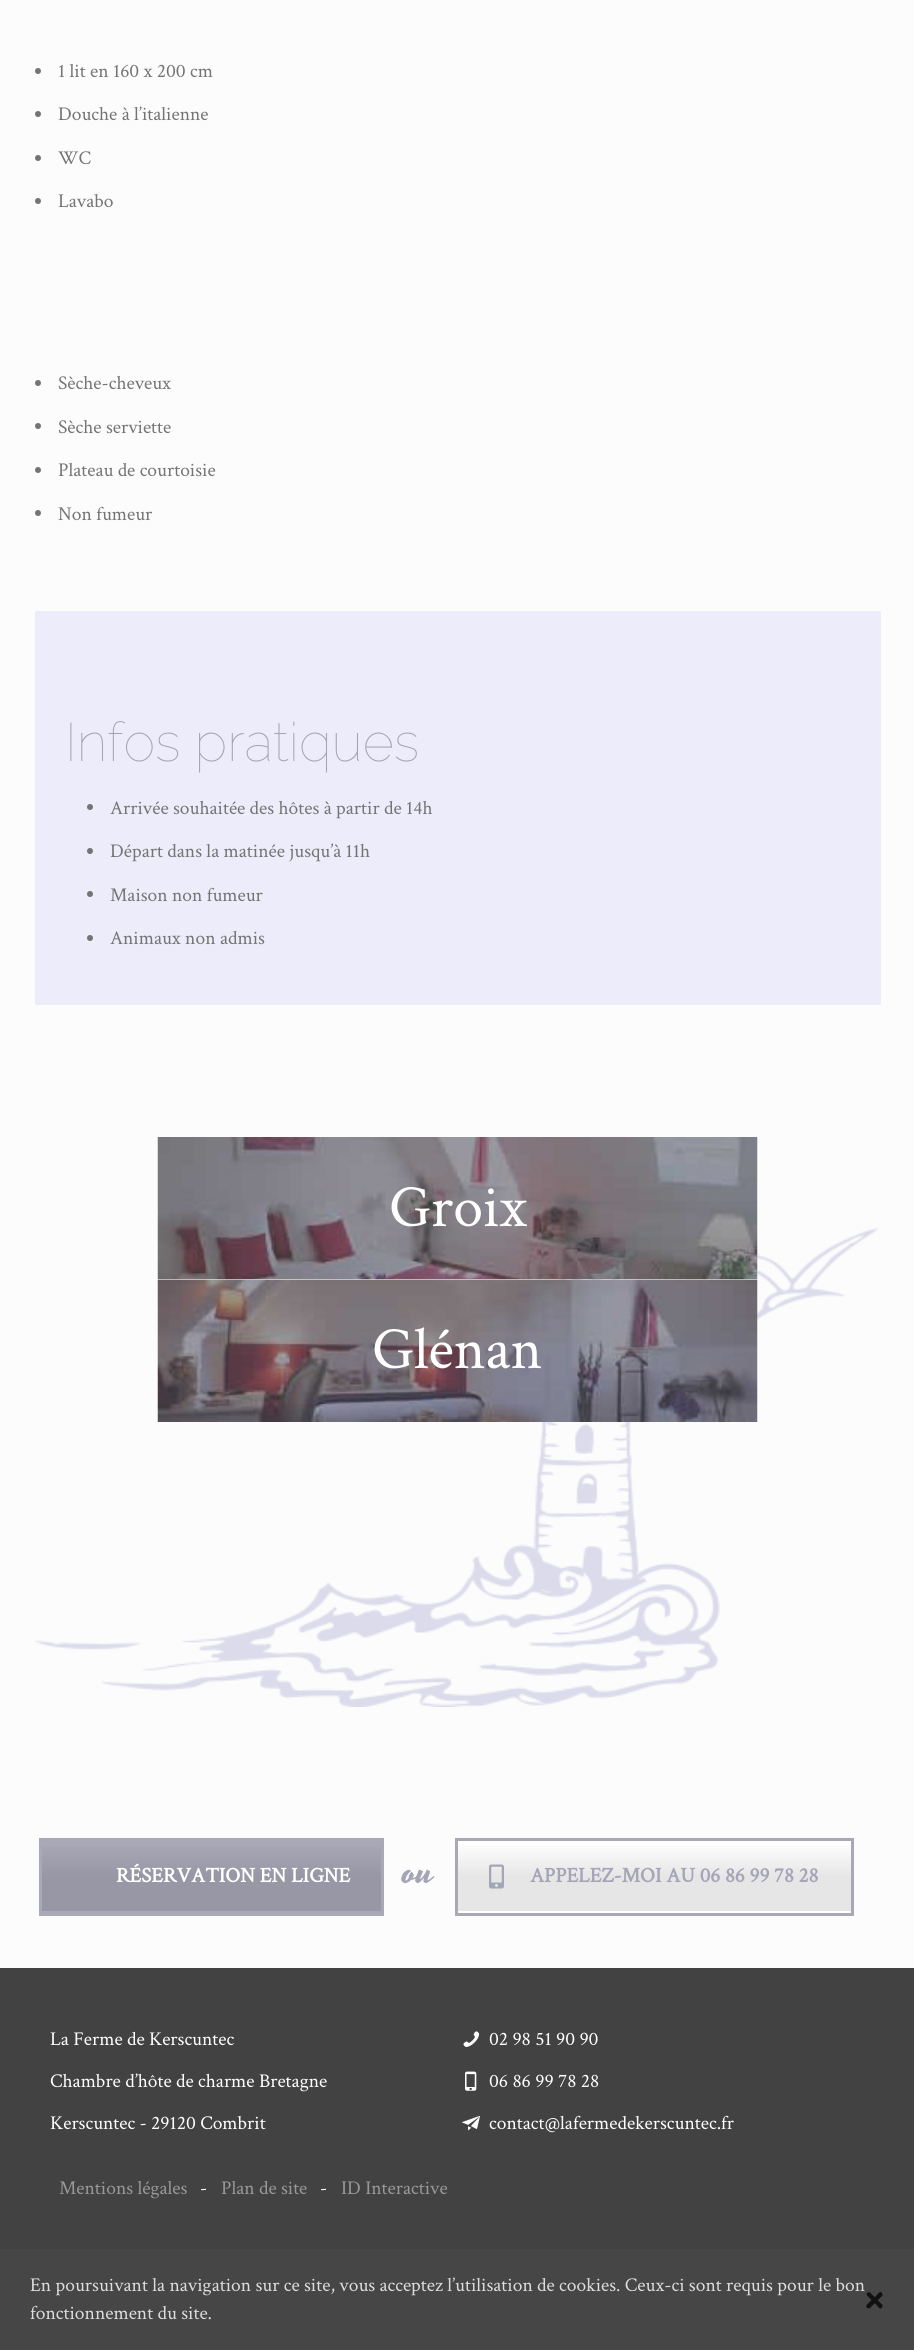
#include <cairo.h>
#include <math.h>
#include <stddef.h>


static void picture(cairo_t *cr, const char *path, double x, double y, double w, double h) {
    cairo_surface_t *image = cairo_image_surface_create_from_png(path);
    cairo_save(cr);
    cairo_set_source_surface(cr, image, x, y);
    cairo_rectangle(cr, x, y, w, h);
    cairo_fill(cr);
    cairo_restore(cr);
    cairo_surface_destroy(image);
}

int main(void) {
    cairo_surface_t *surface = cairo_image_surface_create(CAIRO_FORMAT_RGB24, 914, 2350);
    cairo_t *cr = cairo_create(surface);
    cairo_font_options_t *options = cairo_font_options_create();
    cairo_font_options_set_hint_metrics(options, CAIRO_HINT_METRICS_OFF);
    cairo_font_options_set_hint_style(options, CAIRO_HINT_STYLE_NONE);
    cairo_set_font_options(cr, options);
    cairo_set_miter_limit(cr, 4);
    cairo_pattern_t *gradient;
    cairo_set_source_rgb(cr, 0.988, 0.988, 0.988);
    cairo_paint(cr);
    cairo_set_source_rgb(cr, 0.455, 0.455, 0.455);
    cairo_arc(cr, 38, 71, 3, 0, 2 * M_PI);
    cairo_fill(cr);
    cairo_select_font_face(cr, "Crimson Text", CAIRO_FONT_SLANT_NORMAL, CAIRO_FONT_WEIGHT_NORMAL);
    cairo_set_font_size(cr, 19.5);
    cairo_move_to(cr, 58, 77);
    cairo_show_text(cr, "1 lit en 160 x 200 cm");
    cairo_new_path(cr);
    cairo_arc(cr, 38, 114, 3, 0, 2 * M_PI);
    cairo_fill(cr);
    cairo_move_to(cr, 58, 120);
    cairo_show_text(cr, "Douche à l’italienne");
    cairo_new_path(cr);
    cairo_arc(cr, 38, 158, 3, 0, 2 * M_PI);
    cairo_fill(cr);
    cairo_move_to(cr, 58, 164);
    cairo_show_text(cr, "WC");
    cairo_new_path(cr);
    cairo_arc(cr, 38, 201, 3, 0, 2 * M_PI);
    cairo_fill(cr);
    cairo_move_to(cr, 58, 207);
    cairo_show_text(cr, "Lavabo");
    cairo_new_path(cr);
    cairo_arc(cr, 38, 383, 3, 0, 2 * M_PI);
    cairo_fill(cr);
    cairo_move_to(cr, 58, 389);
    cairo_show_text(cr, "Sèche-cheveux");
    cairo_new_path(cr);
    cairo_arc(cr, 38, 426, 3, 0, 2 * M_PI);
    cairo_fill(cr);
    cairo_move_to(cr, 58, 433);
    cairo_show_text(cr, "Sèche serviette");
    cairo_new_path(cr);
    cairo_arc(cr, 38, 470, 3, 0, 2 * M_PI);
    cairo_fill(cr);
    cairo_move_to(cr, 58, 476);
    cairo_show_text(cr, "Plateau de courtoisie");
    cairo_new_path(cr);
    cairo_arc(cr, 38, 513, 3, 0, 2 * M_PI);
    cairo_fill(cr);
    cairo_move_to(cr, 58, 520);
    cairo_show_text(cr, "Non fumeur");
    cairo_set_source_rgb(cr, 0.925, 0.925, 0.984);
    cairo_rectangle(cr, 35, 611, 846, 394);
    cairo_fill(cr);
    cairo_select_font_face(cr, "Raleway Thin", CAIRO_FONT_SLANT_NORMAL, CAIRO_FONT_WEIGHT_NORMAL);
    cairo_set_font_size(cr, 54);
    cairo_set_source_rgb(cr, 0.647, 0.647, 0.718);
    cairo_move_to(cr, 65, 761);
    cairo_show_text(cr, "Infos pratiques");
    cairo_set_source_rgb(cr, 0.455, 0.455, 0.455);
    cairo_new_path(cr);
    cairo_arc(cr, 90, 807, 3, 0, 2 * M_PI);
    cairo_fill(cr);
    cairo_select_font_face(cr, "Crimson Text", CAIRO_FONT_SLANT_NORMAL, CAIRO_FONT_WEIGHT_NORMAL);
    cairo_set_font_size(cr, 19.5);
    cairo_move_to(cr, 110, 814);
    cairo_show_text(cr, "Arrivée souhaitée des hôtes à partir de 14h");
    cairo_new_path(cr);
    cairo_arc(cr, 90, 851, 3, 0, 2 * M_PI);
    cairo_fill(cr);
    cairo_move_to(cr, 110, 857);
    cairo_show_text(cr, "Départ dans la matinée jusqu’à 11h");
    cairo_new_path(cr);
    cairo_arc(cr, 90, 894, 3, 0, 2 * M_PI);
    cairo_fill(cr);
    cairo_move_to(cr, 110, 901);
    cairo_show_text(cr, "Maison non fumeur");
    cairo_new_path(cr);
    cairo_arc(cr, 90, 938, 3, 0, 2 * M_PI);
    cairo_fill(cr);
    cairo_move_to(cr, 110, 944);
    cairo_show_text(cr, "Animaux non admis");
    picture(cr, "img3.png", 35, 1227, 844, 480);
    picture(cr, "img1.png", 157, 1137, 601, 143);
    cairo_set_font_size(cr, 60);
    cairo_set_source_rgb(cr, 1, 1, 1);
    cairo_move_to(cr, 389, 1226);
    cairo_show_text(cr, "Groix");
    picture(cr, "img2.png", 157, 1279, 601, 143);
    cairo_move_to(cr, 372, 1368);
    cairo_show_text(cr, "Glénan");
    cairo_rectangle(cr, 40.5, 1839.5, 342, 75);
    cairo_set_source_rgb(cr, 0.659, 0.659, 0.718);
    cairo_set_line_width(cr, 3);
    cairo_stroke(cr);
    cairo_rectangle(cr, 42, 1841, 339, 72);
    cairo_fill(cr);
    gradient = cairo_pattern_create_linear(380, 1842, 380, 1911);
    cairo_pattern_add_color_stop_rgba(gradient, 0, 0.659, 0.659, 0.718, 1);
    cairo_pattern_add_color_stop_rgba(gradient, 0.5, 0.592, 0.592, 0.647, 1);
    cairo_pattern_add_color_stop_rgba(gradient, 1, 0.592, 0.592, 0.647, 1);
    cairo_set_source(cr, gradient);
    cairo_pattern_destroy(gradient);
    cairo_rectangle(cr, 42, 1847, 339, 64);
    cairo_fill(cr);
    cairo_select_font_face(cr, "Crimson Text", CAIRO_FONT_SLANT_NORMAL, CAIRO_FONT_WEIGHT_BOLD);
    cairo_set_font_size(cr, 21);
    cairo_set_source_rgb(cr, 1, 1, 1);
    cairo_move_to(cr, 116, 1882);
    cairo_show_text(cr, "RÉSERVATION EN LIGNE");
    cairo_select_font_face(cr, "Yesteryear", CAIRO_FONT_SLANT_NORMAL, CAIRO_FONT_WEIGHT_NORMAL);
    cairo_set_font_size(cr, 42);
    cairo_set_source_rgb(cr, 0.647, 0.647, 0.718);
    cairo_move_to(cr, 404, 1882);
    cairo_show_text(cr, "ou");
    cairo_rectangle(cr, 456.5, 1839.5, 396, 75);
    cairo_set_source_rgb(cr, 0.659, 0.659, 0.718);
    cairo_stroke(cr);
    cairo_set_source_rgb(cr, 1, 1, 1);
    cairo_rectangle(cr, 458, 1841, 393, 72);
    cairo_fill(cr);
    gradient = cairo_pattern_create_linear(849, 1842, 849, 1911);
    cairo_pattern_add_color_stop_rgba(gradient, 0, 1, 1, 1, 1);
    cairo_pattern_add_color_stop_rgba(gradient, 0.5, 0.902, 0.902, 0.902, 1);
    cairo_pattern_add_color_stop_rgba(gradient, 1, 0.902, 0.902, 0.902, 1);
    cairo_set_source(cr, gradient);
    cairo_pattern_destroy(gradient);
    cairo_rectangle(cr, 458, 1845, 393, 66);
    cairo_fill(cr);
    picture(cr, "img4.png", 489, 1864, 15, 25);
    cairo_select_font_face(cr, "Crimson Text", CAIRO_FONT_SLANT_NORMAL, CAIRO_FONT_WEIGHT_BOLD);
    cairo_set_font_size(cr, 21);
    cairo_set_source_rgb(cr, 0.647, 0.647, 0.718);
    cairo_move_to(cr, 530, 1882);
    cairo_show_text(cr, "APPELEZ-MOI AU 06 86 99 78 28");
    cairo_set_source_rgb(cr, 0.259, 0.259, 0.259);
    cairo_rectangle(cr, 0, 1968, 914, 281);
    cairo_fill(cr);
    cairo_select_font_face(cr, "Crimson Text", CAIRO_FONT_SLANT_NORMAL, CAIRO_FONT_WEIGHT_NORMAL);
    cairo_set_font_size(cr, 19.5);
    cairo_set_source_rgb(cr, 1, 1, 1);
    cairo_move_to(cr, 50, 2045);
    cairo_show_text(cr, "La Ferme de Kerscuntec");
    cairo_move_to(cr, 50, 2087);
    cairo_show_text(cr, "Chambre d’hôte de charme Bretagne");
    cairo_move_to(cr, 50, 2129);
    cairo_show_text(cr, "Kerscuntec - 29120 Combrit");
    picture(cr, "img5.png", 463, 2031, 17, 16);
    cairo_move_to(cr, 489, 2045);
    cairo_show_text(cr, "02 98 51 90 90");
    picture(cr, "img6.png", 465, 2071, 12, 20);
    cairo_move_to(cr, 489, 2087);
    cairo_show_text(cr, "06 86 99 78 28");
    picture(cr, "img7.png", 462, 2116, 18, 15);
    cairo_move_to(cr, 489, 2129);
    cairo_show_text(cr, "contact@lafermedekerscuntec.fr");
    cairo_set_source_rgb(cr, 0.6, 0.6, 0.6);
    cairo_move_to(cr, 59, 2194);
    cairo_show_text(cr, "Mentions légales");
    cairo_set_source_rgb(cr, 1, 1, 1);
    cairo_move_to(cr, 200, 2194);
    cairo_show_text(cr, "-");
    cairo_set_source_rgb(cr, 0.6, 0.6, 0.6);
    cairo_move_to(cr, 221, 2194);
    cairo_show_text(cr, "Plan de site");
    cairo_set_source_rgb(cr, 1, 1, 1);
    cairo_move_to(cr, 320, 2194);
    cairo_show_text(cr, "-");
    cairo_set_source_rgb(cr, 0.6, 0.6, 0.6);
    cairo_move_to(cr, 341, 2194);
    cairo_show_text(cr, "ID Interactive");
    cairo_set_source_rgb(cr, 0.275, 0.275, 0.275);
    cairo_rectangle(cr, 0, 2249, 914, 101);
    cairo_fill(cr);
    cairo_set_source_rgb(cr, 0.867, 0.867, 0.867);
    cairo_move_to(cr, 30, 2291);
    cairo_show_text(cr, "En poursuivant la navigation sur ce site, vous acceptez l’utilisation de cookies. Ceux-ci sont requis pour le bon");
    cairo_move_to(cr, 30, 2319);
    cairo_show_text(cr, "fonctionnement du site.");
    cairo_set_source_rgb(cr, 0.067, 0.067, 0.067);
    cairo_new_path(cr);
    cairo_move_to(cr, 870.5, 2293);
    cairo_line_to(cr, 882.5, 2305);
    cairo_curve_to(cr, 882.5, 2306, 882.5, 2306.5, 882, 2307.5);
    cairo_curve_to(cr, 880.5, 2310, 878, 2307, 877, 2305.5);
    cairo_line_to(cr, 867, 2295.5);
    cairo_curve_to(cr, 865.5, 2293.5, 868.5, 2291, 870.5, 2293);
    cairo_close_path(cr);
    cairo_fill(cr);
    cairo_new_path(cr);
    cairo_move_to(cr, 867, 2304.5);
    cairo_line_to(cr, 877, 2295);
    cairo_curve_to(cr, 878, 2293.5, 880.5, 2290.5, 882, 2293);
    cairo_curve_to(cr, 882.5, 2294, 882.5, 2294.5, 882.5, 2295.5);
    cairo_line_to(cr, 870, 2308);
    cairo_curve_to(cr, 867.5, 2309.5, 865, 2306.5, 867, 2304.5);
    cairo_close_path(cr);
    cairo_fill(cr);
    cairo_surface_write_to_png(surface, "page.png");
    cairo_font_options_destroy(options);
    cairo_destroy(cr);
    cairo_surface_destroy(surface);
    return 0;
}
